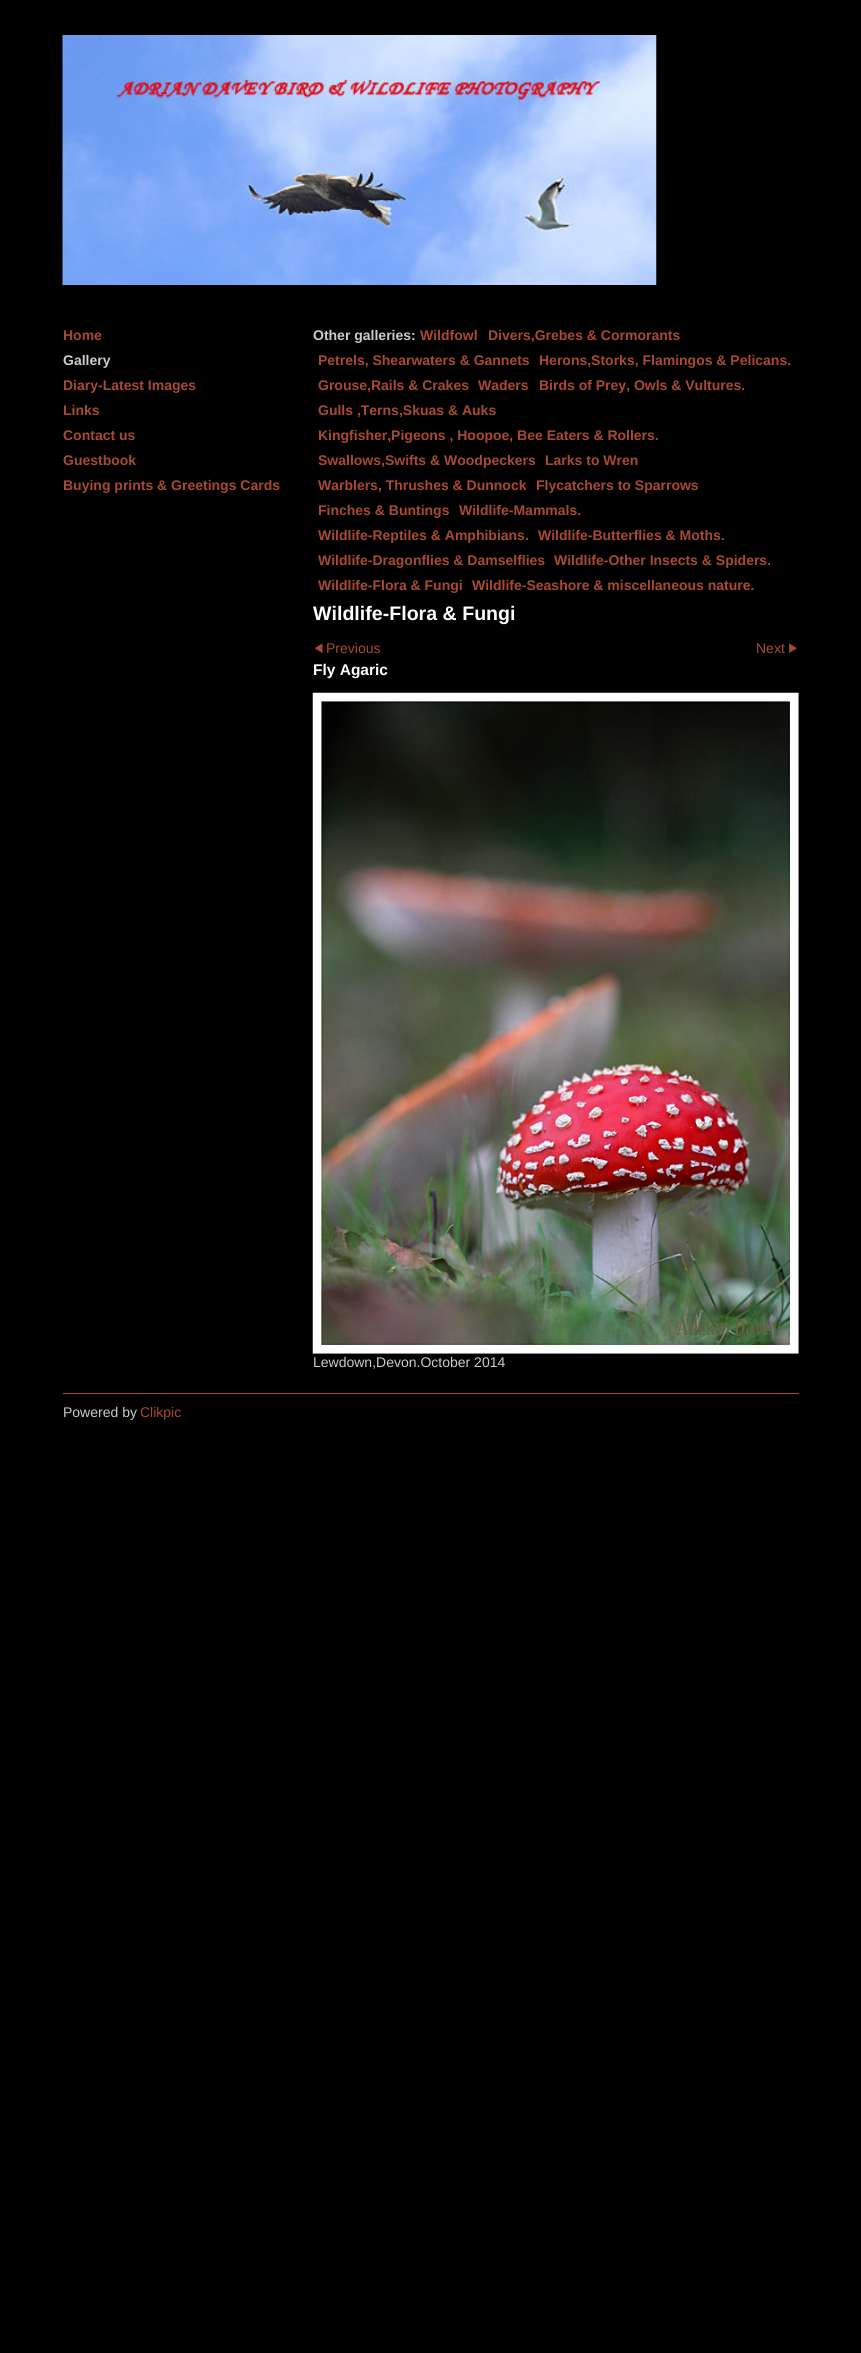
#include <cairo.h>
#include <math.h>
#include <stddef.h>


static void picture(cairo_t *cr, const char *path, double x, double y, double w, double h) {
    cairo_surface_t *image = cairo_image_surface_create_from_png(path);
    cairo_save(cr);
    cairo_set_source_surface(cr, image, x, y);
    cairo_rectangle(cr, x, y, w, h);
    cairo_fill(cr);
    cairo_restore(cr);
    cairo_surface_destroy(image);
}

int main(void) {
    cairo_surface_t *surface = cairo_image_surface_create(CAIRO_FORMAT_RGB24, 861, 2353);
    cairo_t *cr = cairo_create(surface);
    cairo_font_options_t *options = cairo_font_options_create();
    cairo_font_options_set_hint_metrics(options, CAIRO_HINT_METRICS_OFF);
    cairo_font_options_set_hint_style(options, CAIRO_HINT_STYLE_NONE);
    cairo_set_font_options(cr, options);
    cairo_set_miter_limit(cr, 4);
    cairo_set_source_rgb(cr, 0, 0, 0);
    cairo_paint(cr);
    picture(cr, "img1.png", 62, 35, 595, 250);
    cairo_select_font_face(cr, "Liberation Sans", CAIRO_FONT_SLANT_NORMAL, CAIRO_FONT_WEIGHT_BOLD);
    cairo_set_font_size(cr, 14);
    cairo_set_source_rgb(cr, 0.659, 0.29, 0.2);
    cairo_move_to(cr, 63, 340);
    cairo_show_text(cr, "Home");
    cairo_set_source_rgb(cr, 0.8, 0.8, 0.8);
    cairo_move_to(cr, 63, 365);
    cairo_show_text(cr, "Gallery");
    cairo_set_source_rgb(cr, 0.659, 0.29, 0.2);
    cairo_move_to(cr, 63, 390);
    cairo_show_text(cr, "Diary-Latest Images");
    cairo_move_to(cr, 63, 415);
    cairo_show_text(cr, "Links");
    cairo_move_to(cr, 63, 440);
    cairo_show_text(cr, "Contact us");
    cairo_move_to(cr, 63, 465);
    cairo_show_text(cr, "Guestbook");
    cairo_move_to(cr, 63, 490);
    cairo_show_text(cr, "Buying prints & Greetings Cards");
    cairo_set_source_rgb(cr, 0.8, 0.8, 0.8);
    cairo_move_to(cr, 313, 340);
    cairo_show_text(cr, "Other galleries:");
    cairo_set_source_rgb(cr, 0.659, 0.29, 0.2);
    cairo_move_to(cr, 420, 340);
    cairo_show_text(cr, "Wildfowl");
    cairo_move_to(cr, 488, 340);
    cairo_show_text(cr, "Divers,Grebes & Cormorants");
    cairo_move_to(cr, 318, 365);
    cairo_show_text(cr, "Petrels, Shearwaters & Gannets");
    cairo_move_to(cr, 539, 365);
    cairo_show_text(cr, "Herons,Storks, Flamingos & Pelicans.");
    cairo_move_to(cr, 318, 390);
    cairo_show_text(cr, "Grouse,Rails & Crakes");
    cairo_move_to(cr, 478, 390);
    cairo_show_text(cr, "Waders");
    cairo_move_to(cr, 539, 390);
    cairo_show_text(cr, "Birds of Prey, Owls & Vultures.");
    cairo_move_to(cr, 318, 415);
    cairo_show_text(cr, "Gulls ,Terns,Skuas & Auks");
    cairo_move_to(cr, 318, 440);
    cairo_show_text(cr, "Kingfisher,Pigeons , Hoopoe, Bee Eaters & Rollers.");
    cairo_move_to(cr, 318, 465);
    cairo_show_text(cr, "Swallows,Swifts & Woodpeckers");
    cairo_move_to(cr, 545, 465);
    cairo_show_text(cr, "Larks to Wren");
    cairo_move_to(cr, 318, 490);
    cairo_show_text(cr, "Warblers, Thrushes & Dunnock");
    cairo_move_to(cr, 536, 490);
    cairo_show_text(cr, "Flycatchers to Sparrows");
    cairo_move_to(cr, 318, 515);
    cairo_show_text(cr, "Finches & Buntings");
    cairo_move_to(cr, 459, 515);
    cairo_show_text(cr, "Wildlife-Mammals.");
    cairo_move_to(cr, 318, 540);
    cairo_show_text(cr, "Wildlife-Reptiles & Amphibians.");
    cairo_move_to(cr, 538, 540);
    cairo_show_text(cr, "Wildlife-Butterflies & Moths.");
    cairo_move_to(cr, 318, 565);
    cairo_show_text(cr, "Wildlife-Dragonflies & Damselflies");
    cairo_move_to(cr, 554, 565);
    cairo_show_text(cr, "Wildlife-Other Insects & Spiders.");
    cairo_move_to(cr, 318, 590);
    cairo_show_text(cr, "Wildlife-Flora & Fungi");
    cairo_move_to(cr, 472, 590);
    cairo_show_text(cr, "Wildlife-Seashore & miscellaneous nature.");
    cairo_set_font_size(cr, 19.6);
    cairo_set_source_rgb(cr, 1, 1, 1);
    cairo_move_to(cr, 313, 620);
    cairo_show_text(cr, "Wildlife-Flora & Fungi");
    picture(cr, "img2.png", 314, 643, 9, 10);
    cairo_select_font_face(cr, "Liberation Sans", CAIRO_FONT_SLANT_NORMAL, CAIRO_FONT_WEIGHT_NORMAL);
    cairo_set_font_size(cr, 14);
    cairo_set_source_rgb(cr, 0.659, 0.29, 0.2);
    cairo_move_to(cr, 326, 653);
    cairo_show_text(cr, "Previous");
    cairo_move_to(cr, 756, 653);
    cairo_show_text(cr, "Next");
    picture(cr, "img3.png", 789, 643, 8, 10);
    cairo_select_font_face(cr, "Liberation Sans", CAIRO_FONT_SLANT_NORMAL, CAIRO_FONT_WEIGHT_BOLD);
    cairo_set_font_size(cr, 15.5);
    cairo_set_source_rgb(cr, 1, 1, 1);
    cairo_move_to(cr, 313, 675);
    cairo_show_text(cr, "Fly Agaric");
    picture(cr, "img4.png", 312, 692, 487, 662);
    cairo_select_font_face(cr, "Liberation Sans", CAIRO_FONT_SLANT_NORMAL, CAIRO_FONT_WEIGHT_NORMAL);
    cairo_set_font_size(cr, 14);
    cairo_set_source_rgb(cr, 0.8, 0.8, 0.8);
    cairo_move_to(cr, 313, 1367);
    cairo_show_text(cr, "Lewdown,Devon.October 2014");
    cairo_set_source_rgb(cr, 0.659, 0.29, 0.2);
    cairo_rectangle(cr, 63, 1393, 736, 1);
    cairo_fill(cr);
    cairo_set_source_rgb(cr, 0.8, 0.8, 0.8);
    cairo_move_to(cr, 63, 1417);
    cairo_show_text(cr, "Powered by");
    cairo_set_source_rgb(cr, 0.659, 0.29, 0.2);
    cairo_move_to(cr, 140, 1417);
    cairo_show_text(cr, "Clikpic");
    cairo_surface_write_to_png(surface, "page.png");
    cairo_font_options_destroy(options);
    cairo_destroy(cr);
    cairo_surface_destroy(surface);
    return 0;
}
